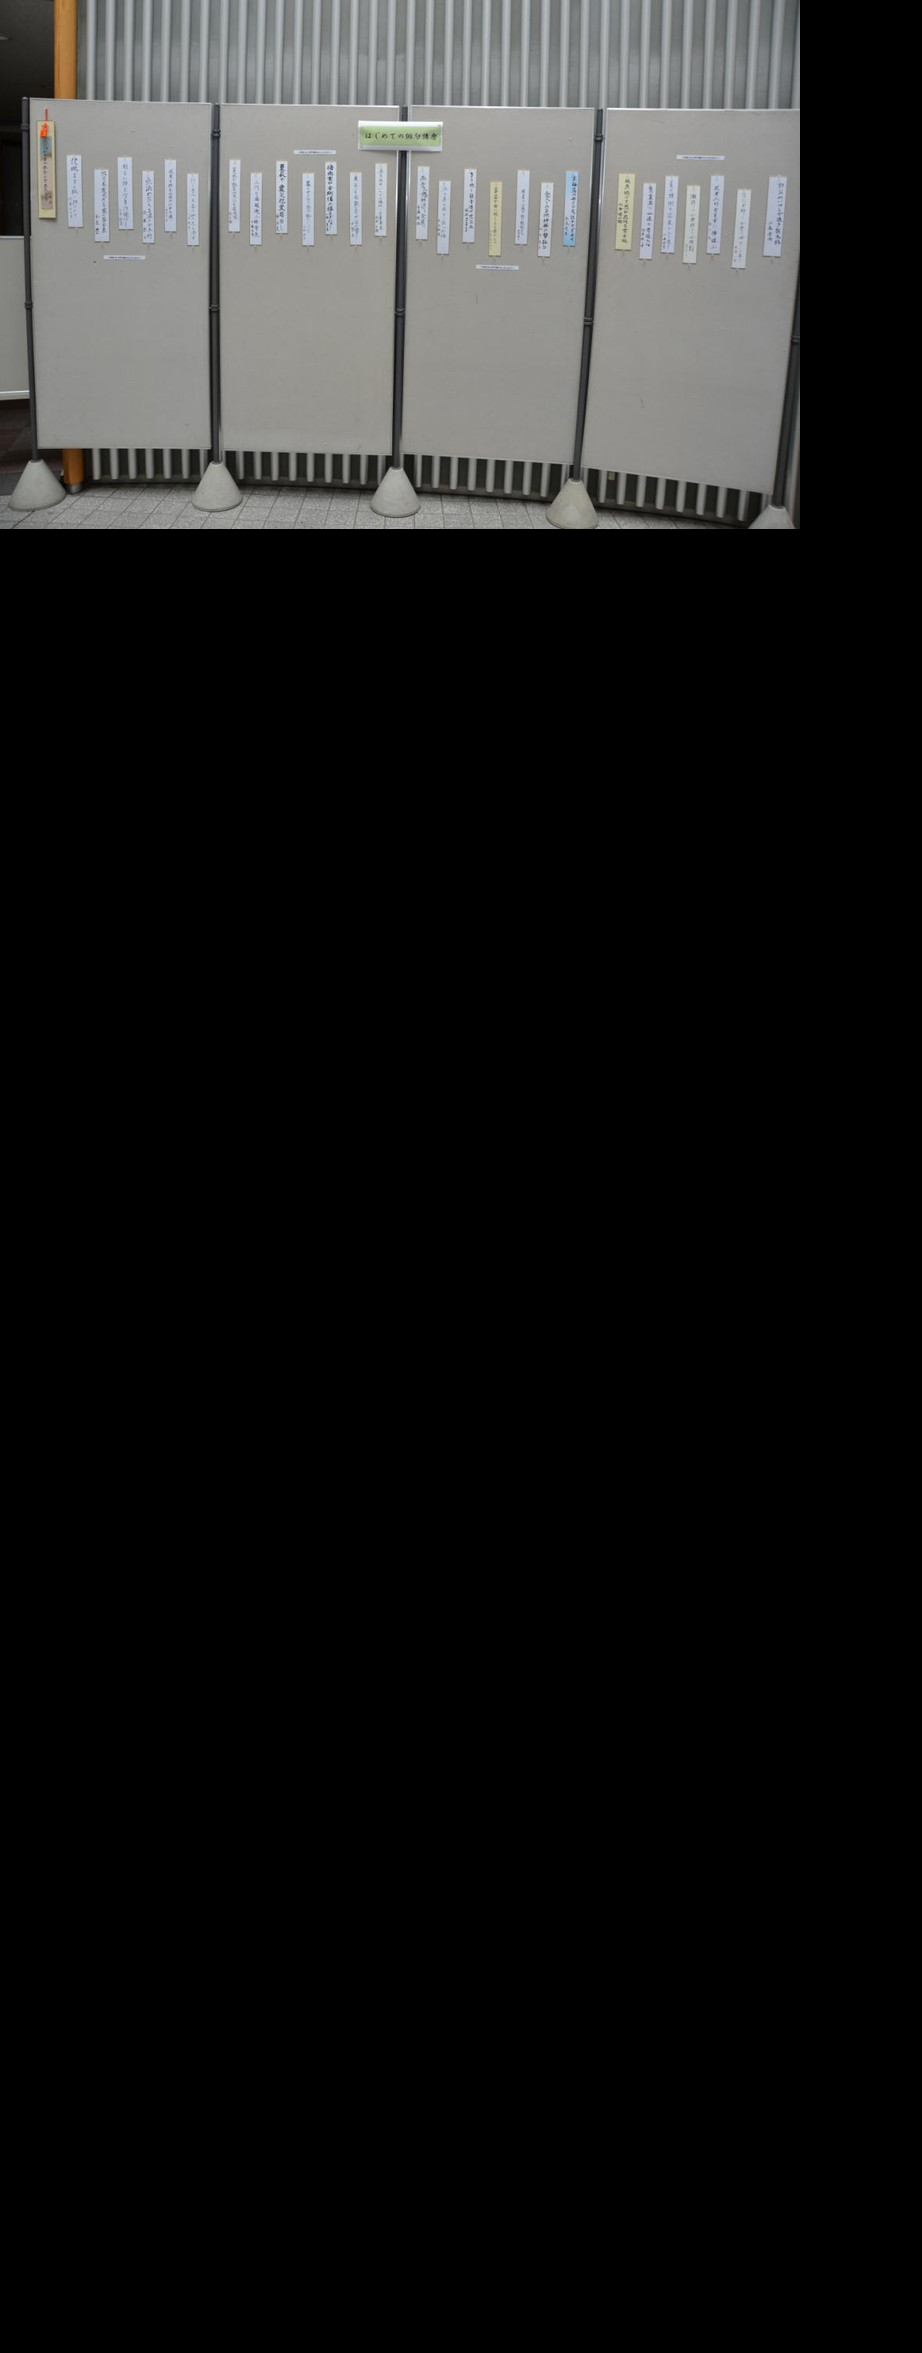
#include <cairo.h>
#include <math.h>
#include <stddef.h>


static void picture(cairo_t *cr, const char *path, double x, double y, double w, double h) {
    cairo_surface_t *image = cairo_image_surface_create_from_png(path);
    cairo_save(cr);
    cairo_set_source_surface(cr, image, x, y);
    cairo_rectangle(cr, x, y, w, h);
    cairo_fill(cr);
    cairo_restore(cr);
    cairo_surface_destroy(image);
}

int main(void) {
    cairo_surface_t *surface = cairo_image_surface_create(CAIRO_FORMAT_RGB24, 922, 2353);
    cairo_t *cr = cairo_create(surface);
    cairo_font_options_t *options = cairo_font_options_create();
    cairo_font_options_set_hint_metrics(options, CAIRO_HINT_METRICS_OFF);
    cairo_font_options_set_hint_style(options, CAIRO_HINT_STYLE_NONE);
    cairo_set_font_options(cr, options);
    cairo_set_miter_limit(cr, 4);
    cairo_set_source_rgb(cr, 0, 0, 0);
    cairo_paint(cr);
    picture(cr, "img1.png", 0, 0, 800, 529);
    cairo_surface_write_to_png(surface, "page.png");
    cairo_font_options_destroy(options);
    cairo_destroy(cr);
    cairo_surface_destroy(surface);
    return 0;
}
